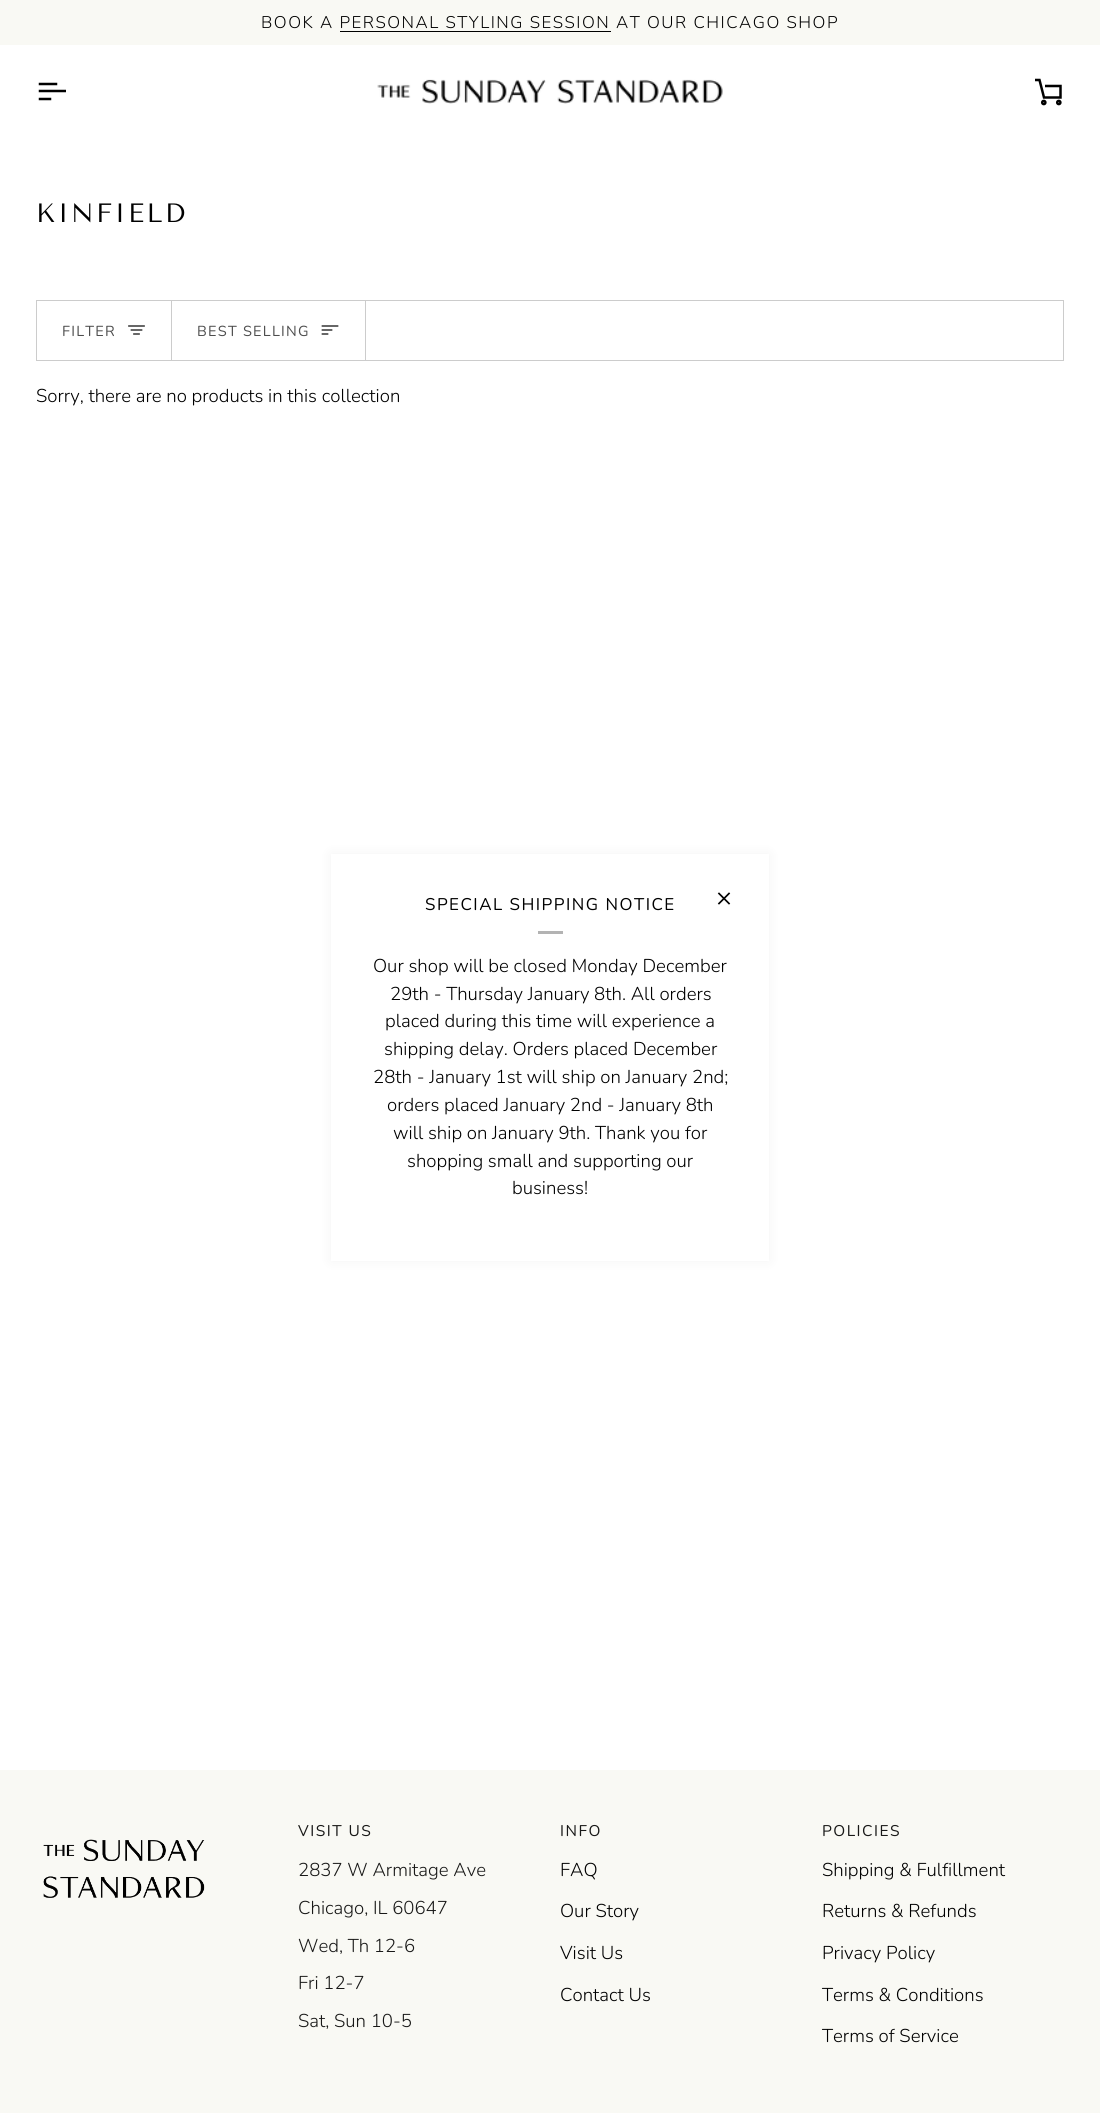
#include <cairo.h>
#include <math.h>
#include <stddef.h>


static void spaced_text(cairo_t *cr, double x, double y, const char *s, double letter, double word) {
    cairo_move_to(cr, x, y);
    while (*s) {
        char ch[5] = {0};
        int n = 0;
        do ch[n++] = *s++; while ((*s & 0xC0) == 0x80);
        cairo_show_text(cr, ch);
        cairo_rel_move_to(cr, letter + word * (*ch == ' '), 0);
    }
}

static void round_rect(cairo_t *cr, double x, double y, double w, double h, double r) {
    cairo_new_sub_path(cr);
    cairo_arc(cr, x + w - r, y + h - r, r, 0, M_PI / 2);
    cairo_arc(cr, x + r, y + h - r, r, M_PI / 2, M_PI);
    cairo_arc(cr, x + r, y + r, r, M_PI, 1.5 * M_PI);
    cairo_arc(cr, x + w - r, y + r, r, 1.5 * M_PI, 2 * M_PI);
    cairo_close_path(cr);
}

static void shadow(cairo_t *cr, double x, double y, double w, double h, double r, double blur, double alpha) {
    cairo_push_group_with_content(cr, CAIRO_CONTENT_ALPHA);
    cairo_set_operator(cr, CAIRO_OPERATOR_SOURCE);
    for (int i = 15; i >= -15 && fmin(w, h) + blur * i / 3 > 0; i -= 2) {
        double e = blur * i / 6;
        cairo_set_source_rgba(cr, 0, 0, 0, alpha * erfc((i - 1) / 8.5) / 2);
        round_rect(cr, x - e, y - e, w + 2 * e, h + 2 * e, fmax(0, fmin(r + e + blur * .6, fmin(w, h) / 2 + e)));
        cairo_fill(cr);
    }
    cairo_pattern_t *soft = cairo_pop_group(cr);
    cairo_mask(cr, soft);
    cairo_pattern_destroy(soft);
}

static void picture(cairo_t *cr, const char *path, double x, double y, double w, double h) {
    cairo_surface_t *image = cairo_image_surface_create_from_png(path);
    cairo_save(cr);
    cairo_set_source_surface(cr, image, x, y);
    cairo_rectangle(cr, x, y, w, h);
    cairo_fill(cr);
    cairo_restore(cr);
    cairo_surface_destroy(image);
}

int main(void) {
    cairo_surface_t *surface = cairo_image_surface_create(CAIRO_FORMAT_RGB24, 1100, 2113);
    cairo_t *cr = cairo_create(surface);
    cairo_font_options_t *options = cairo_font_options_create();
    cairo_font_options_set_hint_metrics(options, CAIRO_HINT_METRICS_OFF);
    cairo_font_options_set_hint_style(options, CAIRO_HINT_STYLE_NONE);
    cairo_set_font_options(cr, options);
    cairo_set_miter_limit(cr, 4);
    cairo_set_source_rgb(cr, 1, 1, 1);
    cairo_paint(cr);
    cairo_set_source_rgb(cr, 0.976, 0.973, 0.957);
    cairo_rectangle(cr, 0, 0, 1100, 45);
    cairo_fill(cr);
    cairo_select_font_face(cr, "Nunito Light", CAIRO_FONT_SLANT_NORMAL, CAIRO_FONT_WEIGHT_NORMAL);
    cairo_set_font_size(cr, 16.9);
    cairo_set_source_rgb(cr, 0, 0, 0);
    spaced_text(cr, 261, 28, "BOOK A PERSONAL STYLING SESSION", 1.5, 0);
    spaced_text(cr, 616, 28, "AT OUR CHICAGO SHOP", 1.5, 0);
    cairo_rectangle(cr, 340, 31, 271, 1);
    cairo_fill(cr);
    cairo_save(cr);
    cairo_rectangle(cr, 36, 76, 30, 30);
    cairo_clip(cr);
    cairo_new_path(cr);
    cairo_move_to(cr, 56, 84);
    cairo_line_to(cr, 40, 84);
    cairo_move_to(cr, 65, 91);
    cairo_line_to(cr, 40, 91);
    cairo_move_to(cr, 50, 99);
    cairo_line_to(cr, 40, 99);
    cairo_set_line_width(cr, 2.5);
    cairo_set_line_cap(cr, CAIRO_LINE_CAP_SQUARE);
    cairo_stroke(cr);
    cairo_restore(cr);
    picture(cr, "img1.png", 377, 79, 346, 25);
    cairo_new_path(cr);
    cairo_move_to(cr, 1035, 80);
    cairo_line_to(cr, 1039.5, 80);
    cairo_line_to(cr, 1044, 97.5);
    cairo_line_to(cr, 1060.5, 97.5);
    cairo_line_to(cr, 1060.5, 86);
    cairo_line_to(cr, 1045, 86);
    cairo_set_line_width(cr, 2.5);
    cairo_stroke(cr);
    cairo_arc(cr, 1043.8, 102.5, 1.6, 0, 2 * M_PI);
    cairo_stroke(cr);
    cairo_arc(cr, 1058.8, 102.5, 1.6, 0, 2 * M_PI);
    cairo_stroke(cr);
    cairo_select_font_face(cr, "Tenor Sans", CAIRO_FONT_SLANT_NORMAL, CAIRO_FONT_WEIGHT_NORMAL);
    cairo_set_font_size(cr, 26.5);
    spaced_text(cr, 36, 222, "KINFIELD", 2.5, 0);
    cairo_rectangle(cr, 36.5, 300.5, 1027, 60);
    cairo_set_source_rgb(cr, 0.8, 0.8, 0.8);
    cairo_set_line_width(cr, 1);
    cairo_stroke(cr);
    cairo_rectangle(cr, 171, 301, 1, 59);
    cairo_fill(cr);
    cairo_select_font_face(cr, "Nunito", CAIRO_FONT_SLANT_NORMAL, CAIRO_FONT_WEIGHT_NORMAL);
    cairo_set_font_size(cr, 14.5);
    cairo_set_source_rgb(cr, 0.302, 0.302, 0.302);
    spaced_text(cr, 62, 336, "FILTER", 1.25, 0);
    cairo_new_path(cr);
    cairo_move_to(cr, 144, 326);
    cairo_line_to(cr, 129, 326);
    cairo_move_to(cr, 141.5, 330);
    cairo_line_to(cr, 131.5, 330);
    cairo_move_to(cr, 139, 334);
    cairo_line_to(cr, 134, 334);
    cairo_set_line_width(cr, 1.7);
    cairo_set_line_cap(cr, CAIRO_LINE_CAP_SQUARE);
    cairo_stroke(cr);
    cairo_set_source_rgb(cr, 0.8, 0.8, 0.8);
    cairo_rectangle(cr, 365, 301, 1, 59);
    cairo_fill(cr);
    cairo_set_source_rgb(cr, 0.302, 0.302, 0.302);
    spaced_text(cr, 197, 336, "BEST SELLING", 1.25, 0);
    cairo_new_path(cr);
    cairo_move_to(cr, 337.5, 326);
    cairo_line_to(cr, 322.5, 326);
    cairo_move_to(cr, 331.5, 330);
    cairo_line_to(cr, 322.5, 330);
    cairo_move_to(cr, 327.5, 334);
    cairo_line_to(cr, 322.5, 334);
    cairo_stroke(cr);
    cairo_select_font_face(cr, "Nunito Light", CAIRO_FONT_SLANT_NORMAL, CAIRO_FONT_WEIGHT_NORMAL);
    cairo_set_font_size(cr, 18.6);
    cairo_set_source_rgb(cr, 0, 0, 0);
    cairo_move_to(cr, 36, 402);
    cairo_show_text(cr, "Sorry, there are no products in this collection");
    cairo_set_source_rgb(cr, 0, 0, 0);
    shadow(cr, 331, 854, 438, 407, 0, 6, 0.05);
    cairo_set_source_rgb(cr, 1, 1, 1);
    cairo_rectangle(cr, 331, 854, 438, 407);
    cairo_fill(cr);
    cairo_select_font_face(cr, "Nunito", CAIRO_FONT_SLANT_NORMAL, CAIRO_FONT_WEIGHT_NORMAL);
    cairo_set_font_size(cr, 16.9);
    cairo_set_source_rgb(cr, 0, 0, 0);
    spaced_text(cr, 425, 910, "SPECIAL SHIPPING NOTICE", 1.5, 0);
    cairo_new_path(cr);
    cairo_move_to(cr, 729, 893.5);
    cairo_line_to(cr, 719, 903.5);
    cairo_move_to(cr, 719, 893.5);
    cairo_line_to(cr, 729, 903.5);
    cairo_stroke(cr);
    cairo_set_source_rgb(cr, 0.702, 0.702, 0.702);
    cairo_rectangle(cr, 538, 931, 25, 3);
    cairo_fill(cr);
    cairo_select_font_face(cr, "Nunito Light", CAIRO_FONT_SLANT_NORMAL, CAIRO_FONT_WEIGHT_NORMAL);
    cairo_set_font_size(cr, 18.6);
    cairo_set_source_rgb(cr, 0, 0, 0);
    cairo_move_to(cr, 373, 972);
    cairo_show_text(cr, "Our shop will be closed Monday December");
    cairo_move_to(cr, 390, 1000);
    cairo_show_text(cr, "29th - Thursday January 8th. All orders");
    cairo_move_to(cr, 385, 1027);
    cairo_show_text(cr, "placed during this time will experience a");
    cairo_move_to(cr, 384, 1055);
    cairo_show_text(cr, "shipping delay. Orders placed December");
    cairo_move_to(cr, 373, 1083);
    cairo_show_text(cr, "28th - January 1st will ship on January 2nd;");
    cairo_move_to(cr, 387, 1111);
    cairo_show_text(cr, "orders placed January 2nd - January 8th");
    cairo_move_to(cr, 393, 1139);
    cairo_show_text(cr, "will ship on January 9th. Thank you for");
    cairo_move_to(cr, 407, 1167);
    cairo_show_text(cr, "shopping small and supporting our");
    cairo_move_to(cr, 512, 1194);
    cairo_show_text(cr, "business!");
    cairo_set_source_rgb(cr, 0.976, 0.973, 0.957);
    cairo_rectangle(cr, 0, 1770, 1100, 343);
    cairo_fill(cr);
    picture(cr, "img2.png", 43, 1839, 162, 59);
    cairo_select_font_face(cr, "Nunito", CAIRO_FONT_SLANT_NORMAL, CAIRO_FONT_WEIGHT_NORMAL);
    cairo_set_font_size(cr, 15.5);
    cairo_set_source_rgb(cr, 0.098, 0.098, 0.094);
    spaced_text(cr, 298, 1836, "VISIT US", 1.5, 0);
    cairo_select_font_face(cr, "Nunito Light", CAIRO_FONT_SLANT_NORMAL, CAIRO_FONT_WEIGHT_NORMAL);
    cairo_set_font_size(cr, 18.6);
    cairo_move_to(cr, 298, 1876);
    cairo_show_text(cr, "2837 W Armitage Ave");
    cairo_move_to(cr, 298, 1914);
    cairo_show_text(cr, "Chicago, IL 60647");
    cairo_move_to(cr, 298, 1952);
    cairo_show_text(cr, "Wed, Th 12-6");
    cairo_move_to(cr, 298, 1989);
    cairo_show_text(cr, "Fri 12-7");
    cairo_move_to(cr, 298, 2027);
    cairo_show_text(cr, "Sat, Sun 10-5");
    cairo_select_font_face(cr, "Nunito", CAIRO_FONT_SLANT_NORMAL, CAIRO_FONT_WEIGHT_NORMAL);
    cairo_set_font_size(cr, 15.5);
    spaced_text(cr, 560, 1836, "INFO", 1.5, 0);
    cairo_select_font_face(cr, "Nunito Light", CAIRO_FONT_SLANT_NORMAL, CAIRO_FONT_WEIGHT_NORMAL);
    cairo_set_font_size(cr, 18.6);
    cairo_set_source_rgb(cr, 0, 0, 0);
    cairo_move_to(cr, 560, 1876);
    cairo_show_text(cr, "FAQ");
    cairo_move_to(cr, 560, 1917);
    cairo_show_text(cr, "Our Story");
    cairo_move_to(cr, 560, 1959);
    cairo_show_text(cr, "Visit Us");
    cairo_move_to(cr, 560, 2001);
    cairo_show_text(cr, "Contact Us");
    cairo_select_font_face(cr, "Nunito", CAIRO_FONT_SLANT_NORMAL, CAIRO_FONT_WEIGHT_NORMAL);
    cairo_set_font_size(cr, 15.5);
    cairo_set_source_rgb(cr, 0.098, 0.098, 0.094);
    spaced_text(cr, 822, 1836, "POLICIES", 1.5, 0);
    cairo_select_font_face(cr, "Nunito Light", CAIRO_FONT_SLANT_NORMAL, CAIRO_FONT_WEIGHT_NORMAL);
    cairo_set_font_size(cr, 18.6);
    cairo_set_source_rgb(cr, 0, 0, 0);
    cairo_move_to(cr, 822, 1876);
    cairo_show_text(cr, "Shipping & Fulfillment");
    cairo_move_to(cr, 822, 1917);
    cairo_show_text(cr, "Returns & Refunds");
    cairo_move_to(cr, 822, 1959);
    cairo_show_text(cr, "Privacy Policy");
    cairo_move_to(cr, 822, 2001);
    cairo_show_text(cr, "Terms & Conditions");
    cairo_move_to(cr, 822, 2042);
    cairo_show_text(cr, "Terms of Service");
    cairo_surface_write_to_png(surface, "page.png");
    cairo_font_options_destroy(options);
    cairo_destroy(cr);
    cairo_surface_destroy(surface);
    return 0;
}
